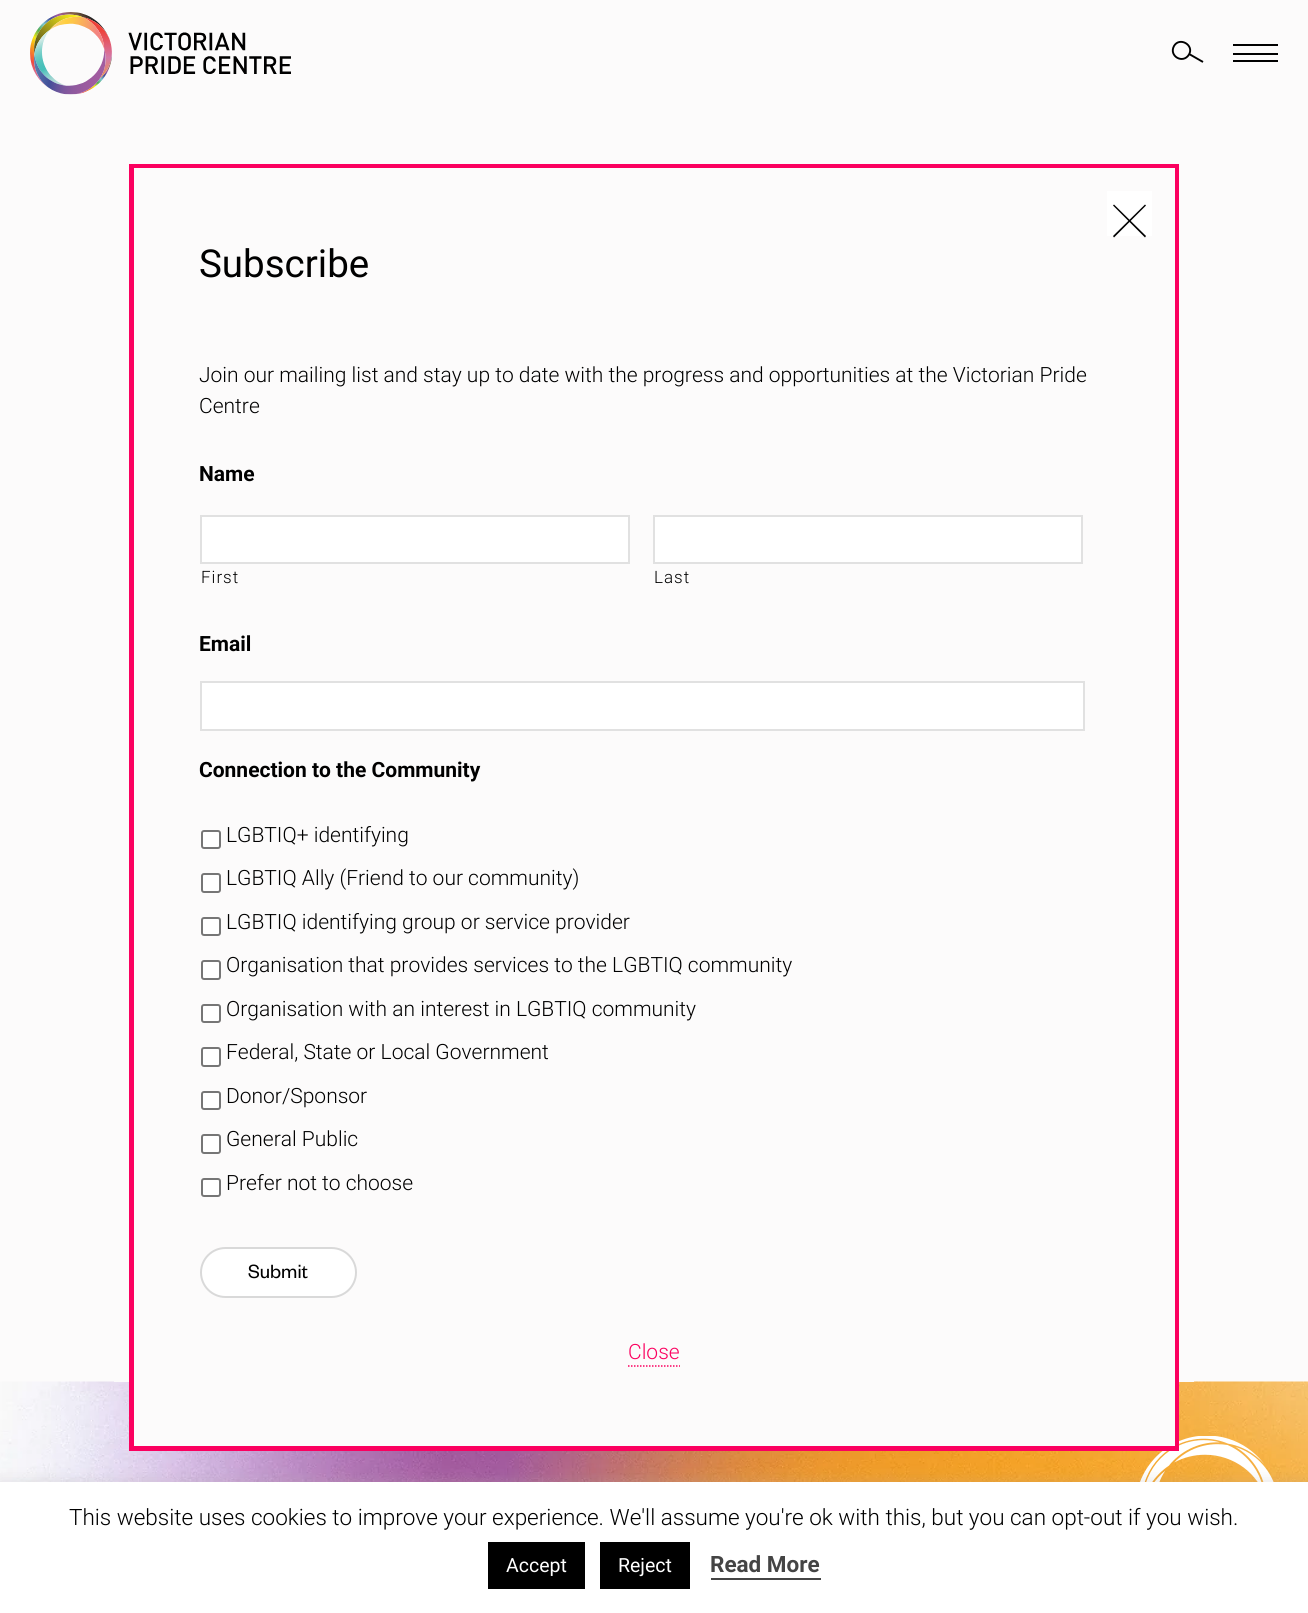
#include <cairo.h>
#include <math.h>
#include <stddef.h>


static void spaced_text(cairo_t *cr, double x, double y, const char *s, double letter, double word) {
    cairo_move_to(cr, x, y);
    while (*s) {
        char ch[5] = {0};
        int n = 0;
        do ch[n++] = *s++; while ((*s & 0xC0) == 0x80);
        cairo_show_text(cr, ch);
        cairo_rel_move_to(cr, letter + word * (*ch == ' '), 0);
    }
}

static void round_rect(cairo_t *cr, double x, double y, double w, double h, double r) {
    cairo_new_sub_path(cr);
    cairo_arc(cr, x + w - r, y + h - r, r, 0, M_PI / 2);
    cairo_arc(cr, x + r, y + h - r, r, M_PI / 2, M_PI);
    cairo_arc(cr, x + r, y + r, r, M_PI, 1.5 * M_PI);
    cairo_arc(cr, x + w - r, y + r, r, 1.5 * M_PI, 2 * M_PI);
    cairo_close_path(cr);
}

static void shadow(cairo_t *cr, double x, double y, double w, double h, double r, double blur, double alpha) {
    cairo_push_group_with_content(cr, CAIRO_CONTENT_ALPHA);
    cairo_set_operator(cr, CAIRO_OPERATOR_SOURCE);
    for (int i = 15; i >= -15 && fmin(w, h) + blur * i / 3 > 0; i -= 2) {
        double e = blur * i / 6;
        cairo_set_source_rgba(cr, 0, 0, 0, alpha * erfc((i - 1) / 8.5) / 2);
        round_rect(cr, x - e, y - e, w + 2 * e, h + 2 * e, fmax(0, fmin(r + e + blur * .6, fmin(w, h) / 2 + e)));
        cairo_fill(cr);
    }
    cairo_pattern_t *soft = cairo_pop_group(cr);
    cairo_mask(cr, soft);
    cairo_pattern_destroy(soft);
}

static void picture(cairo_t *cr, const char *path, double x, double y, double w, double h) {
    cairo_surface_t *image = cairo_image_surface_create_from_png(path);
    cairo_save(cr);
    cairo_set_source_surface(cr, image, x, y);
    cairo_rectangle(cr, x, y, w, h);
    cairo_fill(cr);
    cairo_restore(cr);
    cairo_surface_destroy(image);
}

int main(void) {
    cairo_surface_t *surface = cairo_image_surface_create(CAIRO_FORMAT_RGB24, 1308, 1613);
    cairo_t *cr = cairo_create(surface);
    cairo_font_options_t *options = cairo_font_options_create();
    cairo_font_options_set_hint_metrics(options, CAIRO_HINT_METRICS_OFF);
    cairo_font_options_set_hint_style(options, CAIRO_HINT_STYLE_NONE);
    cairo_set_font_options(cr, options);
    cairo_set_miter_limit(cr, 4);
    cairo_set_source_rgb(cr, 0.988, 0.984, 0.984);
    cairo_paint(cr);
    picture(cr, "img1.png", 30, 12, 261, 83);
    cairo_new_path(cr);
    cairo_move_to(cr, 1174, 46);
    cairo_curve_to(cr, 1179.5, 36.5, 1194.5, 45, 1189, 54.5);
    cairo_curve_to(cr, 1183, 64.5, 1168.5, 56, 1174, 46);
    cairo_close_path(cr);
    cairo_move_to(cr, 1190, 54.5);
    cairo_line_to(cr, 1203, 62);
    cairo_set_source_rgb(cr, 0, 0, 0);
    cairo_set_line_width(cr, 1.9);
    cairo_stroke(cr);
    cairo_rectangle(cr, 1233, 44, 45, 2);
    cairo_fill(cr);
    cairo_rectangle(cr, 1233, 53, 45, 2);
    cairo_fill(cr);
    cairo_rectangle(cr, 1233, 60, 45, 2);
    cairo_fill(cr);
    picture(cr, "img2.png", 0, 1381, 1308, 101);
    picture(cr, "img3.png", 1140, 1436, 134, 46);
    cairo_set_source_rgb(cr, 0.988, 0.984, 0.984);
    cairo_rectangle(cr, 114, 1381, 1080, 1);
    cairo_fill(cr);
    cairo_rectangle(cr, 131.5, 166.5, 1045, 1282);
    cairo_set_source_rgb(cr, 0.984, 0, 0.373);
    cairo_set_line_width(cr, 5);
    cairo_stroke(cr);
    cairo_set_source_rgb(cr, 0.988, 0.984, 0.984);
    cairo_rectangle(cr, 134, 168, 1041, 1278);
    cairo_fill(cr);
    cairo_set_source_rgb(cr, 1, 1, 1);
    cairo_rectangle(cr, 1107, 191, 45, 45);
    cairo_fill(cr);
    cairo_set_source_rgb(cr, 0, 0, 0);
    cairo_new_path(cr);
    cairo_move_to(cr, 1113, 236);
    cairo_line_to(cr, 1145, 204.5);
    cairo_line_to(cr, 1146, 205.5);
    cairo_line_to(cr, 1114, 237.5);
    cairo_close_path(cr);
    cairo_fill(cr);
    cairo_new_path(cr);
    cairo_move_to(cr, 1114, 204.5);
    cairo_line_to(cr, 1146, 236);
    cairo_line_to(cr, 1145, 237.5);
    cairo_line_to(cr, 1113, 205.5);
    cairo_close_path(cr);
    cairo_fill(cr);
    cairo_select_font_face(cr, "Roboto", CAIRO_FONT_SLANT_NORMAL, CAIRO_FONT_WEIGHT_NORMAL);
    cairo_set_font_size(cr, 38.5);
    cairo_move_to(cr, 199, 277);
    cairo_show_text(cr, "Subscribe");
    cairo_select_font_face(cr, "Roboto Light", CAIRO_FONT_SLANT_NORMAL, CAIRO_FONT_WEIGHT_NORMAL);
    cairo_set_font_size(cr, 21);
    cairo_move_to(cr, 199, 382);
    cairo_show_text(cr, "Join our mailing list and stay up to date with the progress and opportunities at the Victorian Pride");
    cairo_move_to(cr, 199, 413);
    cairo_show_text(cr, "Centre");
    cairo_select_font_face(cr, "Roboto", CAIRO_FONT_SLANT_NORMAL, CAIRO_FONT_WEIGHT_BOLD);
    cairo_move_to(cr, 199, 481);
    cairo_show_text(cr, "Name");
    cairo_set_source_rgb(cr, 1, 1, 1);
    cairo_rectangle(cr, 201, 516, 428, 47);
    cairo_fill_preserve(cr);
    cairo_set_source_rgb(cr, 0.882, 0.882, 0.882);
    cairo_set_line_width(cr, 2);
    cairo_stroke(cr);
    cairo_select_font_face(cr, "Roboto Light", CAIRO_FONT_SLANT_NORMAL, CAIRO_FONT_WEIGHT_NORMAL);
    cairo_set_font_size(cr, 17);
    cairo_set_source_rgb(cr, 0, 0, 0);
    spaced_text(cr, 201, 583, "First", 1, 0);
    cairo_set_source_rgb(cr, 1, 1, 1);
    cairo_rectangle(cr, 654, 516, 428, 47);
    cairo_fill_preserve(cr);
    cairo_set_source_rgb(cr, 0.882, 0.882, 0.882);
    cairo_stroke(cr);
    cairo_set_source_rgb(cr, 0, 0, 0);
    spaced_text(cr, 654, 583, "Last", 1, 0);
    cairo_select_font_face(cr, "Roboto", CAIRO_FONT_SLANT_NORMAL, CAIRO_FONT_WEIGHT_BOLD);
    cairo_set_font_size(cr, 21);
    cairo_move_to(cr, 199, 651);
    cairo_show_text(cr, "Email");
    cairo_set_source_rgb(cr, 1, 1, 1);
    cairo_rectangle(cr, 201, 682, 883, 48);
    cairo_fill_preserve(cr);
    cairo_set_source_rgb(cr, 0.882, 0.882, 0.882);
    cairo_stroke(cr);
    cairo_set_source_rgb(cr, 0, 0, 0);
    cairo_move_to(cr, 199, 777);
    cairo_show_text(cr, "Connection to the Community");
    cairo_set_source_rgb(cr, 1, 1, 1);
    round_rect(cr, 202, 831, 18, 17, 2);
    cairo_fill_preserve(cr);
    cairo_set_source_rgb(cr, 0.463, 0.463, 0.463);
    cairo_stroke(cr);
    cairo_select_font_face(cr, "Roboto Light", CAIRO_FONT_SLANT_NORMAL, CAIRO_FONT_WEIGHT_NORMAL);
    cairo_set_source_rgb(cr, 0, 0, 0);
    cairo_move_to(cr, 226, 842);
    cairo_show_text(cr, "LGBTIQ+ identifying");
    cairo_set_source_rgb(cr, 1, 1, 1);
    round_rect(cr, 202, 874, 18, 18, 2);
    cairo_fill_preserve(cr);
    cairo_set_source_rgb(cr, 0.463, 0.463, 0.463);
    cairo_stroke(cr);
    cairo_set_source_rgb(cr, 0, 0, 0);
    cairo_move_to(cr, 226, 885);
    cairo_show_text(cr, "LGBTIQ Ally (Friend to our community)");
    cairo_set_source_rgb(cr, 1, 1, 1);
    round_rect(cr, 202, 918, 18, 17, 2);
    cairo_fill_preserve(cr);
    cairo_set_source_rgb(cr, 0.463, 0.463, 0.463);
    cairo_stroke(cr);
    cairo_set_source_rgb(cr, 0, 0, 0);
    cairo_move_to(cr, 226, 929);
    cairo_show_text(cr, "LGBTIQ identifying group or service provider");
    cairo_set_source_rgb(cr, 1, 1, 1);
    round_rect(cr, 202, 961, 18, 18, 2);
    cairo_fill_preserve(cr);
    cairo_set_source_rgb(cr, 0.463, 0.463, 0.463);
    cairo_stroke(cr);
    cairo_set_source_rgb(cr, 0, 0, 0);
    cairo_move_to(cr, 226, 972);
    cairo_show_text(cr, "Organisation that provides services to the LGBTIQ community");
    cairo_set_source_rgb(cr, 1, 1, 1);
    round_rect(cr, 202, 1005, 18, 17, 2);
    cairo_fill_preserve(cr);
    cairo_set_source_rgb(cr, 0.463, 0.463, 0.463);
    cairo_stroke(cr);
    cairo_set_source_rgb(cr, 0, 0, 0);
    cairo_move_to(cr, 226, 1016);
    cairo_show_text(cr, "Organisation with an interest in LGBTIQ community");
    cairo_set_source_rgb(cr, 1, 1, 1);
    round_rect(cr, 202, 1048, 18, 18, 2);
    cairo_fill_preserve(cr);
    cairo_set_source_rgb(cr, 0.463, 0.463, 0.463);
    cairo_stroke(cr);
    cairo_set_source_rgb(cr, 0, 0, 0);
    cairo_move_to(cr, 226, 1059);
    cairo_show_text(cr, "Federal, State or Local Government");
    cairo_set_source_rgb(cr, 1, 1, 1);
    round_rect(cr, 202, 1092, 18, 17, 2);
    cairo_fill_preserve(cr);
    cairo_set_source_rgb(cr, 0.463, 0.463, 0.463);
    cairo_stroke(cr);
    cairo_set_source_rgb(cr, 0, 0, 0);
    cairo_move_to(cr, 226, 1103);
    cairo_show_text(cr, "Donor/Sponsor");
    cairo_set_source_rgb(cr, 1, 1, 1);
    round_rect(cr, 202, 1135, 18, 18, 2);
    cairo_fill_preserve(cr);
    cairo_set_source_rgb(cr, 0.463, 0.463, 0.463);
    cairo_stroke(cr);
    cairo_set_source_rgb(cr, 0, 0, 0);
    cairo_move_to(cr, 226, 1146);
    cairo_show_text(cr, "General Public");
    cairo_set_source_rgb(cr, 1, 1, 1);
    round_rect(cr, 202, 1179, 18, 17, 2);
    cairo_fill_preserve(cr);
    cairo_set_source_rgb(cr, 0.463, 0.463, 0.463);
    cairo_stroke(cr);
    cairo_set_source_rgb(cr, 0, 0, 0);
    cairo_move_to(cr, 226, 1190);
    cairo_show_text(cr, "Prefer not to choose");
    cairo_set_source_rgb(cr, 1, 1, 1);
    round_rect(cr, 201, 1248, 155, 49, 24.5);
    cairo_fill_preserve(cr);
    cairo_set_source_rgb(cr, 0.851, 0.851, 0.851);
    cairo_stroke(cr);
    cairo_select_font_face(cr, "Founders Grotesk", CAIRO_FONT_SLANT_NORMAL, CAIRO_FONT_WEIGHT_NORMAL);
    cairo_set_source_rgb(cr, 0, 0, 0);
    cairo_move_to(cr, 248, 1278);
    cairo_show_text(cr, "Submit");
    cairo_select_font_face(cr, "Roboto Light", CAIRO_FONT_SLANT_NORMAL, CAIRO_FONT_WEIGHT_NORMAL);
    cairo_set_source_rgb(cr, 0.984, 0, 0.373);
    cairo_move_to(cr, 628, 1359);
    cairo_show_text(cr, "Close");
    cairo_new_path(cr);
    cairo_move_to(cr, 628, 1366);
    cairo_line_to(cr, 680, 1366);
    cairo_set_line_width(cr, 1.5);
    cairo_set_dash(cr, (double[]){1.5, 1.5}, 2, 0);
    cairo_stroke(cr);
    cairo_set_source_rgb(cr, 0.675, 0.671, 0.671);
    shadow(cr, 0, 1481, 1308, 132, 0, 7.5, 0.3);
    cairo_set_source_rgb(cr, 1, 1, 1);
    cairo_rectangle(cr, 0, 1482, 1308, 131);
    cairo_fill(cr);
    cairo_set_font_size(cr, 22.5);
    cairo_set_source_rgb(cr, 0, 0, 0);
    cairo_move_to(cr, 69, 1525);
    cairo_show_text(cr, "This website uses cookies to improve your experience. We'll assume you're ok with this, but you can opt-out if you wish.");
    cairo_rectangle(cr, 488, 1542, 97, 47);
    cairo_fill(cr);
    cairo_select_font_face(cr, "Roboto", CAIRO_FONT_SLANT_NORMAL, CAIRO_FONT_WEIGHT_NORMAL);
    cairo_set_font_size(cr, 19.5);
    cairo_set_source_rgb(cr, 1, 1, 1);
    cairo_move_to(cr, 506, 1572);
    cairo_show_text(cr, "Accept");
    cairo_set_source_rgb(cr, 0, 0, 0);
    cairo_rectangle(cr, 600, 1542, 90, 47);
    cairo_fill(cr);
    cairo_set_source_rgb(cr, 1, 1, 1);
    cairo_move_to(cr, 618, 1572);
    cairo_show_text(cr, "Reject");
    cairo_select_font_face(cr, "Roboto", CAIRO_FONT_SLANT_NORMAL, CAIRO_FONT_WEIGHT_BOLD);
    cairo_set_font_size(cr, 22.5);
    cairo_set_source_rgb(cr, 0.267, 0.267, 0.267);
    cairo_move_to(cr, 710, 1572);
    cairo_show_text(cr, "Read More");
    cairo_rectangle(cr, 711, 1578, 110, 2);
    cairo_fill(cr);
    cairo_surface_write_to_png(surface, "page.png");
    cairo_font_options_destroy(options);
    cairo_destroy(cr);
    cairo_surface_destroy(surface);
    return 0;
}
